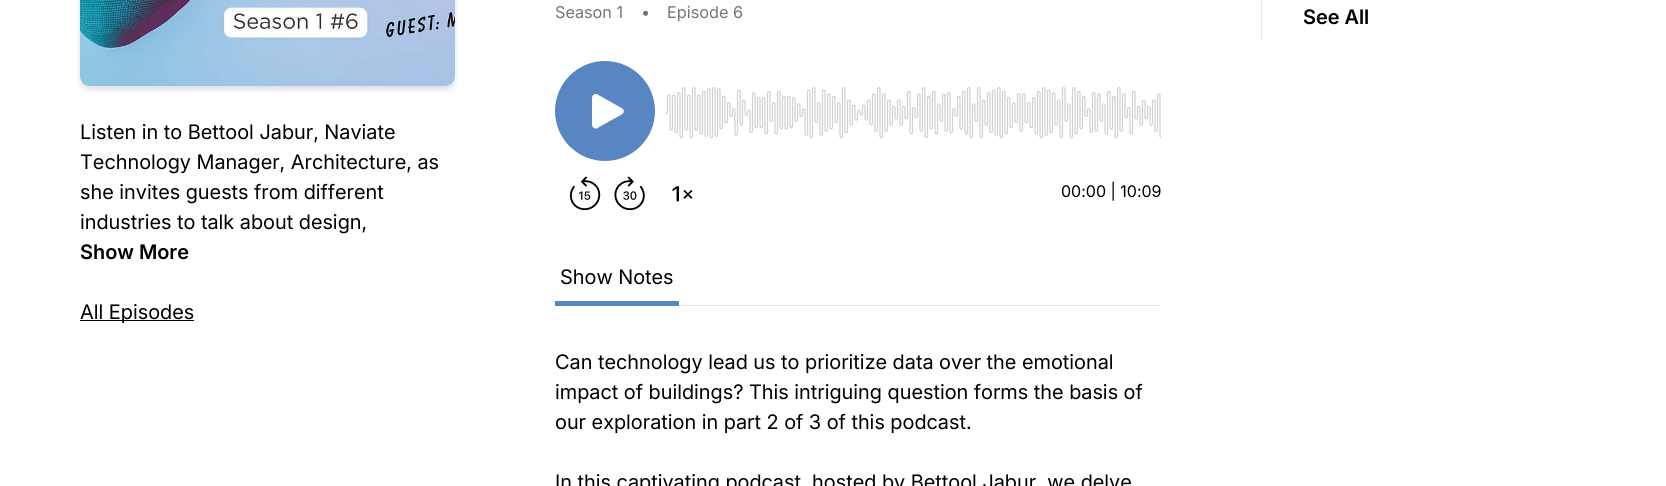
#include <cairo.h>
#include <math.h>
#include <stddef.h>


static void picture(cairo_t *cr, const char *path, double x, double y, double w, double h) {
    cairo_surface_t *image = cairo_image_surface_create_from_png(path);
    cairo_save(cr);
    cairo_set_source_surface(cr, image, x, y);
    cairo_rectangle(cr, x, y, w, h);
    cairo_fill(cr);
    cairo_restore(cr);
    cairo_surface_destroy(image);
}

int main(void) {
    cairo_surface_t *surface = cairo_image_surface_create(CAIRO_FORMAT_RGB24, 1666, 486);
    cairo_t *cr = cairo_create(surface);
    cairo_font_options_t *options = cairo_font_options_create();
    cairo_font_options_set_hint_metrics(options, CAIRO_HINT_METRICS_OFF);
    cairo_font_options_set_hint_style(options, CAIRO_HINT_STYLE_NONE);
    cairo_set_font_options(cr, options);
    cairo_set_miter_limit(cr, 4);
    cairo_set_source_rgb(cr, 1, 1, 1);
    cairo_paint(cr);
    cairo_select_font_face(cr, "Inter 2", CAIRO_FONT_SLANT_NORMAL, CAIRO_FONT_WEIGHT_NORMAL);
    cairo_set_font_size(cr, 16.25);
    cairo_set_source_rgb(cr, 0.455, 0.459, 0.463);
    cairo_move_to(cr, 555, 18);
    cairo_show_text(cr, "Season 1");
    cairo_move_to(cr, 641, 18);
    cairo_show_text(cr, "•");
    cairo_move_to(cr, 667, 18);
    cairo_show_text(cr, "Episode 6");
    picture(cr, "img1.png", 569, 176, 32, 35);
    picture(cr, "img2.png", 614, 176, 31, 35);
    picture(cr, "img3.png", 672, 186, 21, 16);
    cairo_set_source_rgb(cr, 0.345, 0.525, 0.761);
    cairo_arc(cr, 605, 111, 50, 0, 2 * M_PI);
    cairo_fill(cr);
    cairo_set_source_rgb(cr, 1, 1, 1);
    cairo_set_fill_rule(cr, CAIRO_FILL_RULE_EVEN_ODD);
    cairo_new_path(cr);
    cairo_move_to(cr, 592, 98);
    cairo_curve_to(cr, 592, 95, 595, 93, 597.5, 94.5);
    cairo_line_to(cr, 621.5, 108);
    cairo_curve_to(cr, 624.5, 109.5, 624.5, 113, 621.5, 114.5);
    cairo_line_to(cr, 597.5, 128);
    cairo_curve_to(cr, 595, 129.5, 592, 127.5, 592, 124.5);
    cairo_close_path(cr);
    cairo_fill(cr);
    picture(cr, "img4.png", 665, 87, 496, 52);
    cairo_set_font_size(cr, 16);
    cairo_set_source_rgb(cr, 0, 0, 0);
    cairo_move_to(cr, 1061, 197);
    cairo_show_text(cr, "00:00 | 10:09");
    cairo_set_source_rgb(cr, 0.894, 0.898, 0.902);
    cairo_rectangle(cr, 679, 305, 482, 1);
    cairo_fill(cr);
    cairo_set_source_rgb(cr, 0.345, 0.525, 0.761);
    cairo_rectangle(cr, 555, 301, 124, 5);
    cairo_fill(cr);
    cairo_select_font_face(cr, "Inter", CAIRO_FONT_SLANT_NORMAL, CAIRO_FONT_WEIGHT_NORMAL);
    cairo_set_font_size(cr, 20);
    cairo_set_source_rgb(cr, 0, 0, 0);
    cairo_move_to(cr, 560, 284);
    cairo_show_text(cr, "Show Notes");
    cairo_move_to(cr, 555, 369);
    cairo_show_text(cr, "Can technology lead us to prioritize data over the emotional");
    cairo_move_to(cr, 555, 399);
    cairo_show_text(cr, "impact of buildings? This intriguing question forms the basis of");
    cairo_move_to(cr, 555, 429);
    cairo_show_text(cr, "our exploration in part 2 of 3 of this podcast.");
    cairo_move_to(cr, 555, 489);
    cairo_show_text(cr, "In this captivating podcast, hosted by Bettool Jabur, we delve");
    cairo_set_source_rgb(cr, 0.894, 0.898, 0.902);
    cairo_rectangle(cr, 1261, 0, 1, 41);
    cairo_fill(cr);
    cairo_select_font_face(cr, "Inter SemiBold", CAIRO_FONT_SLANT_NORMAL, CAIRO_FONT_WEIGHT_NORMAL);
    cairo_set_source_rgb(cr, 0, 0, 0);
    cairo_move_to(cr, 1303, 24);
    cairo_show_text(cr, "See All");
    picture(cr, "img5.png", 77, 0, 381, 93);
    cairo_select_font_face(cr, "Inter", CAIRO_FONT_SLANT_NORMAL, CAIRO_FONT_WEIGHT_NORMAL);
    cairo_move_to(cr, 80, 139);
    cairo_show_text(cr, "Listen in to Bettool Jabur, Naviate");
    cairo_move_to(cr, 80, 169);
    cairo_show_text(cr, "Technology Manager, Architecture, as");
    cairo_move_to(cr, 80, 199);
    cairo_show_text(cr, "she invites guests from different");
    cairo_move_to(cr, 80, 229);
    cairo_show_text(cr, "industries to talk about design,");
    cairo_select_font_face(cr, "Inter SemiBold", CAIRO_FONT_SLANT_NORMAL, CAIRO_FONT_WEIGHT_NORMAL);
    cairo_move_to(cr, 80, 259);
    cairo_show_text(cr, "Show More");
    cairo_rectangle(cr, 80, 320, 114, 1);
    cairo_fill(cr);
    cairo_select_font_face(cr, "Inter", CAIRO_FONT_SLANT_NORMAL, CAIRO_FONT_WEIGHT_NORMAL);
    cairo_move_to(cr, 80, 319);
    cairo_show_text(cr, "All Episodes");
    cairo_surface_write_to_png(surface, "page.png");
    cairo_font_options_destroy(options);
    cairo_destroy(cr);
    cairo_surface_destroy(surface);
    return 0;
}
